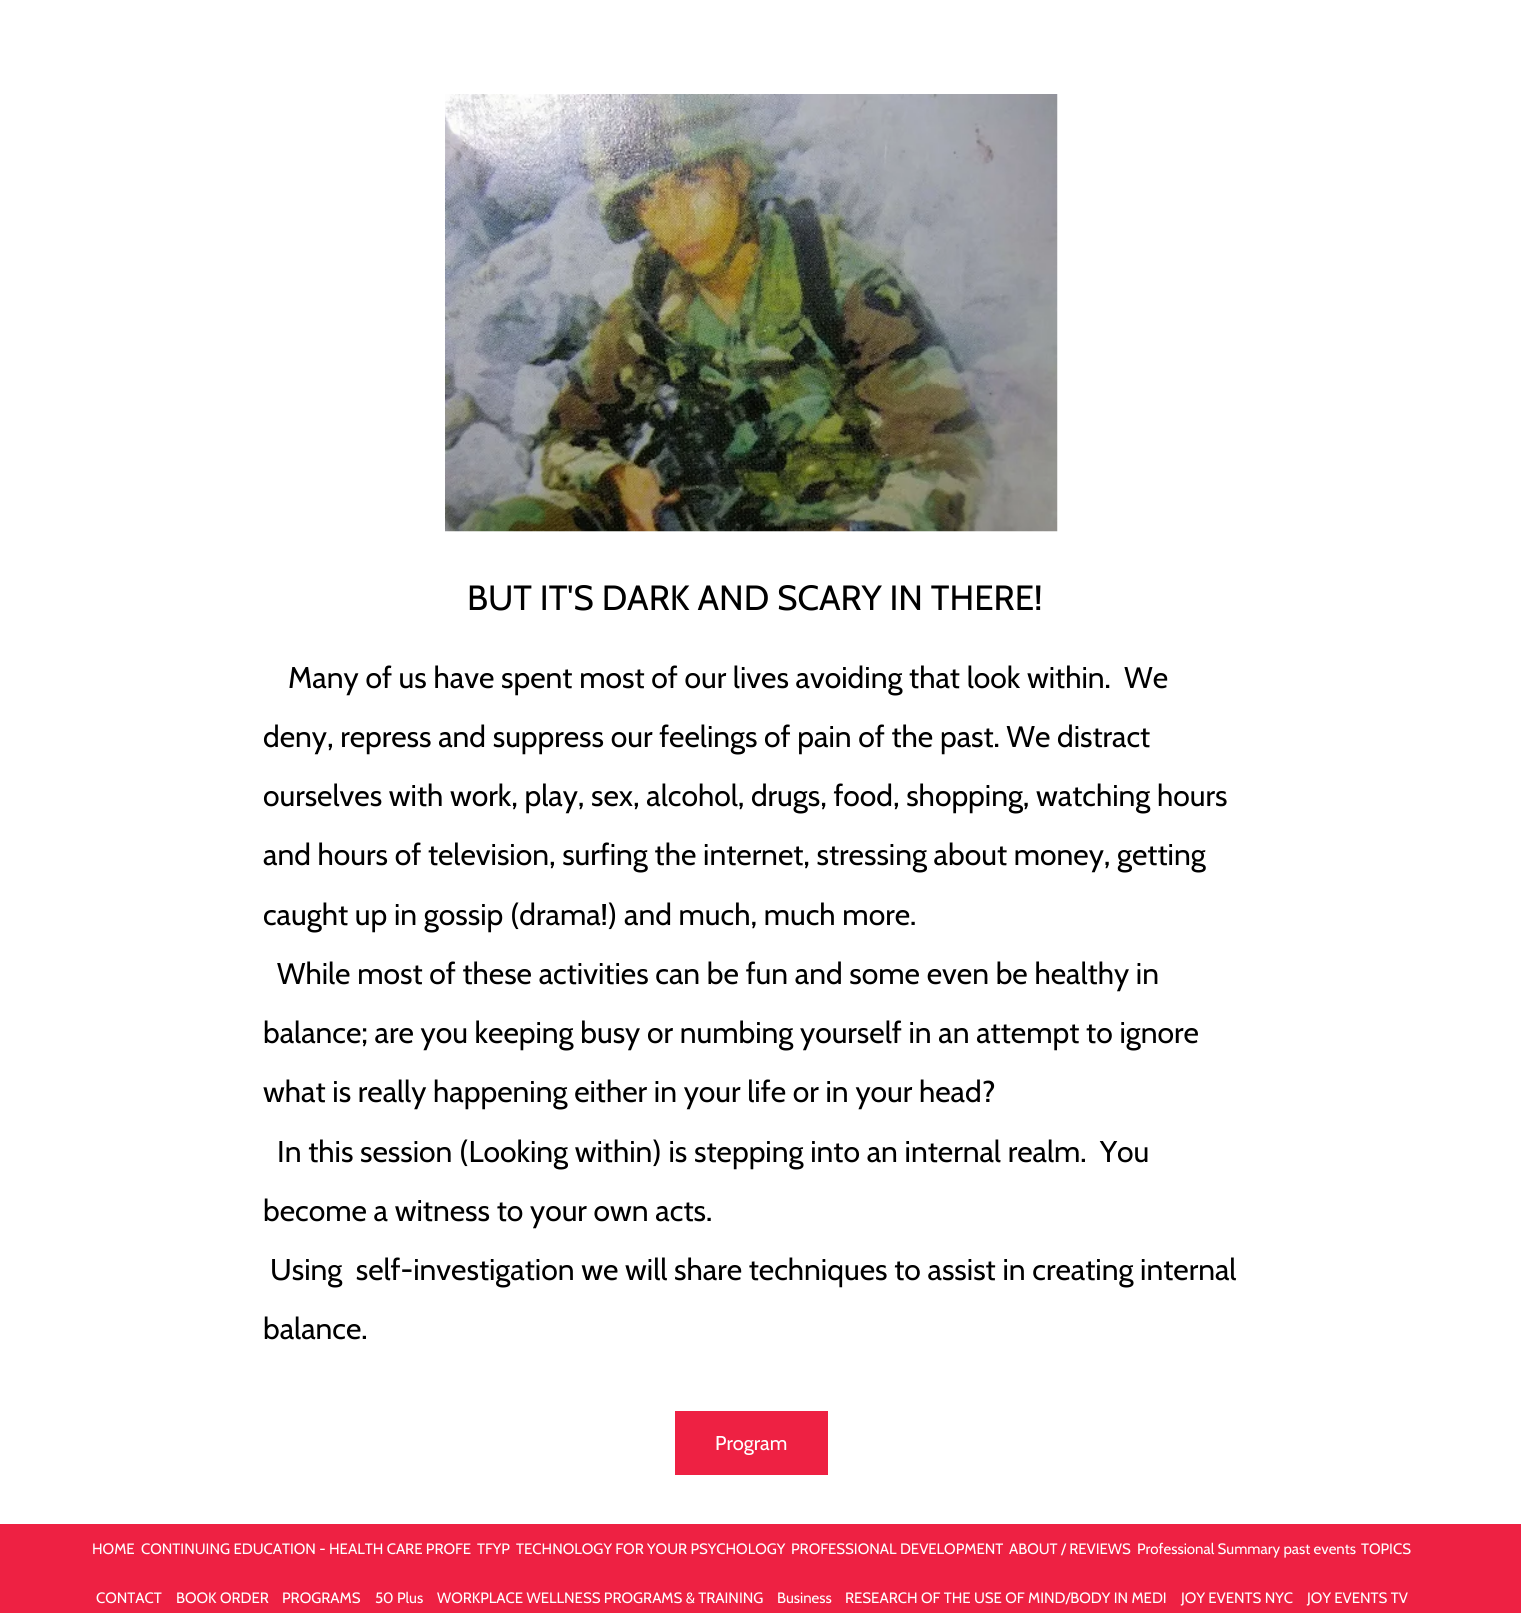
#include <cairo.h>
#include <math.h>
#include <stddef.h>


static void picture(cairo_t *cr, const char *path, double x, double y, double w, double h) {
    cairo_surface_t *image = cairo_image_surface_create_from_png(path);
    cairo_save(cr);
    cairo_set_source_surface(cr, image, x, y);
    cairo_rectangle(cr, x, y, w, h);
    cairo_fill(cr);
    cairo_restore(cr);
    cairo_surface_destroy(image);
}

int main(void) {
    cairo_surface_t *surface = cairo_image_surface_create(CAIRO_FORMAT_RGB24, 1521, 1613);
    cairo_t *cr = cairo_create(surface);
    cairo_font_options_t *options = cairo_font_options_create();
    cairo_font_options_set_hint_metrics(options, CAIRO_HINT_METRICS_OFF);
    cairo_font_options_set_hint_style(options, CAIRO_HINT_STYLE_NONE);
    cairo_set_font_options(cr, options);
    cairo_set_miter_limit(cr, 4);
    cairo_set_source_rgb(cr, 1, 1, 1);
    cairo_paint(cr);
    picture(cr, "img1.png", 445, 94, 613, 438);
    cairo_select_font_face(cr, "Cabin", CAIRO_FONT_SLANT_NORMAL, CAIRO_FONT_WEIGHT_NORMAL);
    cairo_set_font_size(cr, 35);
    cairo_set_source_rgb(cr, 0, 0, 0);
    cairo_move_to(cr, 467, 610);
    cairo_show_text(cr, "BUT IT'S DARK AND SCARY IN THERE!");
    cairo_set_font_size(cr, 30);
    cairo_move_to(cr, 288, 688);
    cairo_show_text(cr, "Many of us have spent most of our lives avoiding that look within.  We");
    cairo_move_to(cr, 263, 747);
    cairo_show_text(cr, "deny, repress and suppress our feelings of pain of the past. We distract");
    cairo_move_to(cr, 263, 806);
    cairo_show_text(cr, "ourselves with work, play, sex, alcohol, drugs, food, shopping, watching hours");
    cairo_move_to(cr, 263, 865);
    cairo_show_text(cr, "and hours of television, surfing the internet, stressing about money, getting");
    cairo_move_to(cr, 263, 925);
    cairo_show_text(cr, "caught up in gossip (drama!) and much, much more.");
    cairo_move_to(cr, 277, 984);
    cairo_show_text(cr, "While most of these activities can be fun and some even be healthy in");
    cairo_move_to(cr, 263, 1043);
    cairo_show_text(cr, "balance; are you keeping busy or numbing yourself in an attempt to ignore");
    cairo_move_to(cr, 263, 1102);
    cairo_show_text(cr, "what is really happening either in your life or in your head?");
    cairo_move_to(cr, 277, 1162);
    cairo_show_text(cr, "In this session (Looking within) is stepping into an internal realm.  You");
    cairo_move_to(cr, 263, 1221);
    cairo_show_text(cr, "become a witness to your own acts.");
    cairo_move_to(cr, 270, 1280);
    cairo_show_text(cr, "Using  self-investigation we will share techniques to assist in creating internal");
    cairo_move_to(cr, 263, 1339);
    cairo_show_text(cr, "balance.");
    cairo_set_source_rgb(cr, 0.933, 0.129, 0.263);
    cairo_rectangle(cr, 675, 1411, 153, 64);
    cairo_fill(cr);
    cairo_set_font_size(cr, 20);
    cairo_set_source_rgb(cr, 1, 1, 1);
    cairo_move_to(cr, 715, 1450);
    cairo_show_text(cr, "Program");
    cairo_set_source_rgb(cr, 0.933, 0.129, 0.263);
    cairo_rectangle(cr, 0, 1524, 1521, 89);
    cairo_fill(cr);
    cairo_set_font_size(cr, 15);
    cairo_set_source_rgb(cr, 1, 1, 1);
    cairo_move_to(cr, 92, 1554);
    cairo_show_text(cr, "HOME");
    cairo_move_to(cr, 141, 1554);
    cairo_show_text(cr, "CONTINUING EDUCATION - HEALTH CARE PROFE");
    cairo_move_to(cr, 477, 1554);
    cairo_show_text(cr, "TFYP");
    cairo_move_to(cr, 516, 1554);
    cairo_show_text(cr, "TECHNOLOGY FOR YOUR PSYCHOLOGY");
    cairo_move_to(cr, 791, 1554);
    cairo_show_text(cr, "PROFESSIONAL DEVELOPMENT");
    cairo_move_to(cr, 1009, 1554);
    cairo_show_text(cr, "ABOUT / REVIEWS");
    cairo_move_to(cr, 1137, 1554);
    cairo_show_text(cr, "Professional Summary past events");
    cairo_move_to(cr, 1361, 1554);
    cairo_show_text(cr, "TOPICS");
    cairo_move_to(cr, 96, 1603);
    cairo_show_text(cr, "CONTACT");
    cairo_move_to(cr, 176, 1603);
    cairo_show_text(cr, "BOOK ORDER");
    cairo_move_to(cr, 282, 1603);
    cairo_show_text(cr, "PROGRAMS");
    cairo_move_to(cr, 375, 1603);
    cairo_show_text(cr, "50 Plus");
    cairo_move_to(cr, 437, 1603);
    cairo_show_text(cr, "WORKPLACE WELLNESS PROGRAMS & TRAINING");
    cairo_move_to(cr, 777, 1603);
    cairo_show_text(cr, "Business");
    cairo_move_to(cr, 845, 1603);
    cairo_show_text(cr, "RESEARCH OF THE USE OF MIND/BODY IN MEDI");
    cairo_move_to(cr, 1181, 1603);
    cairo_show_text(cr, "JOY EVENTS NYC");
    cairo_move_to(cr, 1307, 1603);
    cairo_show_text(cr, "JOY EVENTS TV");
    cairo_surface_write_to_png(surface, "page.png");
    cairo_font_options_destroy(options);
    cairo_destroy(cr);
    cairo_surface_destroy(surface);
    return 0;
}
